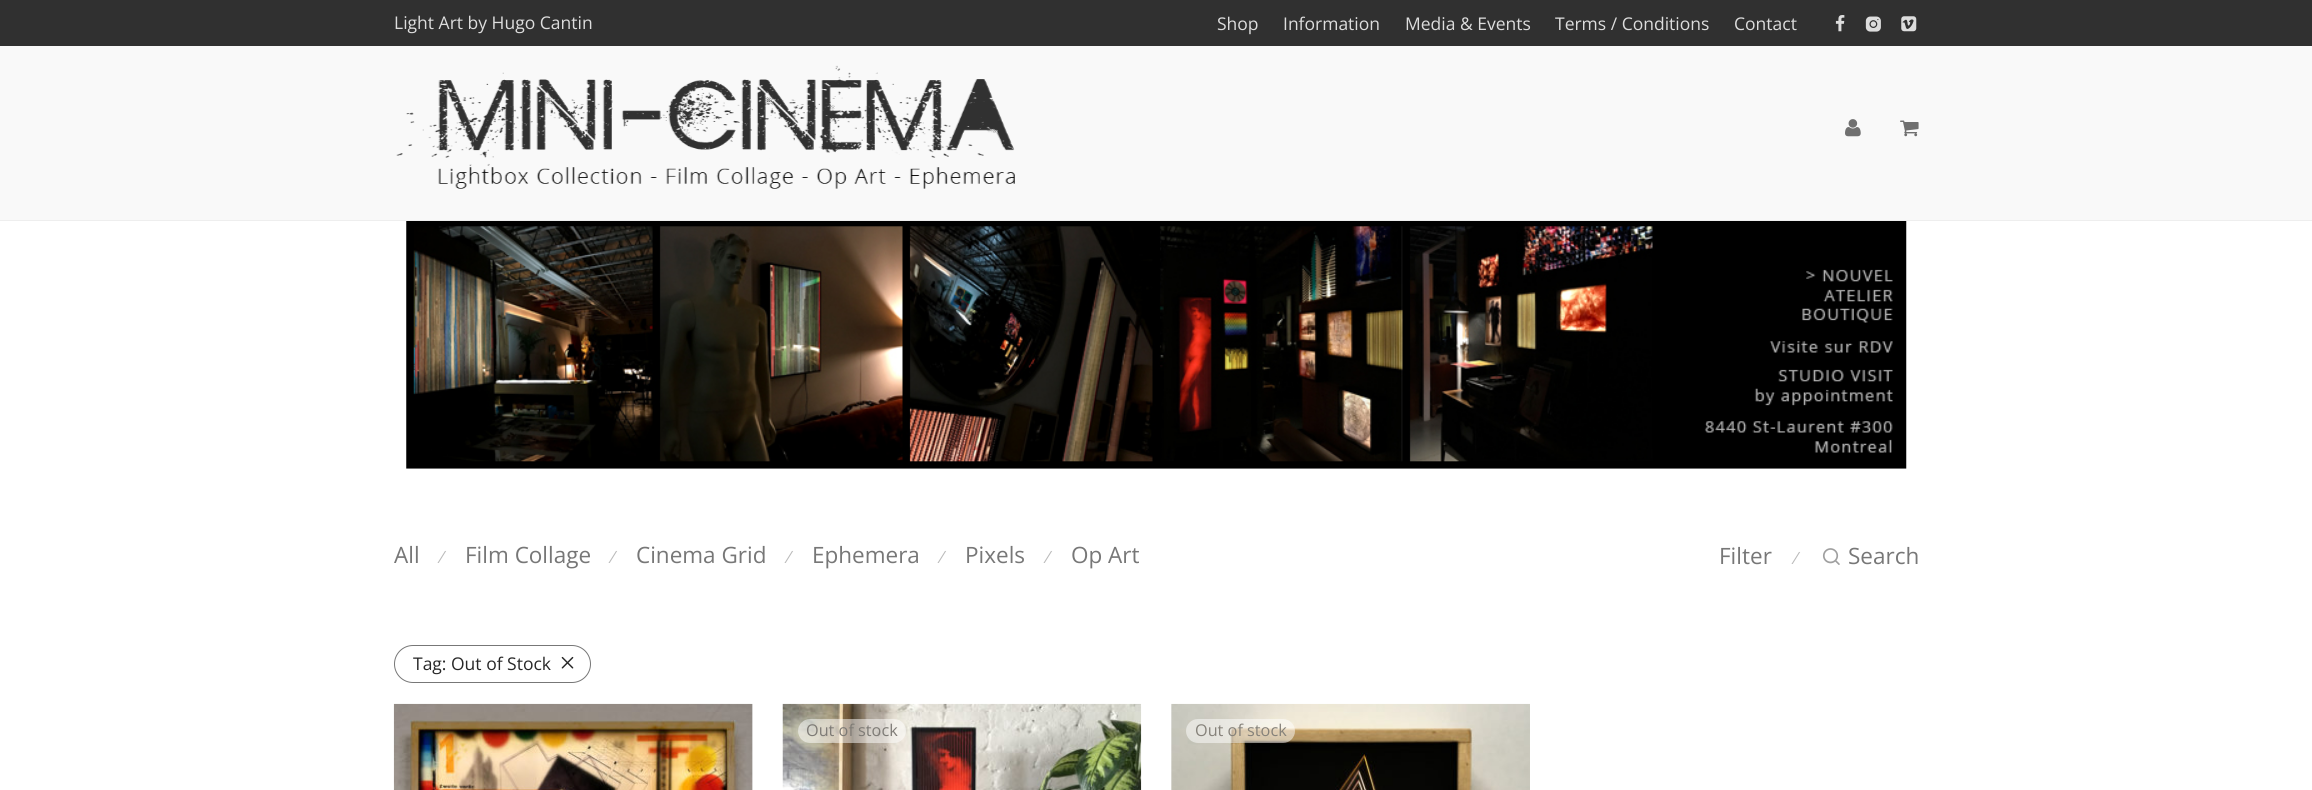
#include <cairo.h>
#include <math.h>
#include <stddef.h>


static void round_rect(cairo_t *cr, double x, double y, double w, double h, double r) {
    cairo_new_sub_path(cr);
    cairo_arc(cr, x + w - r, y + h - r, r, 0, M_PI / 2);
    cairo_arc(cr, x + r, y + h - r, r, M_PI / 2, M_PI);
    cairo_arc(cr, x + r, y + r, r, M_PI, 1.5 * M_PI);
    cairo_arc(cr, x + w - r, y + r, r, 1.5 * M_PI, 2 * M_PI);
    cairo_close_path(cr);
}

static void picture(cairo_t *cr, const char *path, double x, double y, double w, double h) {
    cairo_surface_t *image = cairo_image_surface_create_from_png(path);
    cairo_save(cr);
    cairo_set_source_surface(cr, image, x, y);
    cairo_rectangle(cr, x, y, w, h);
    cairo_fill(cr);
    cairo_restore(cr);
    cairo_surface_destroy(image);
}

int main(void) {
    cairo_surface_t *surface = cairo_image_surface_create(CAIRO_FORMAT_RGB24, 2312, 790);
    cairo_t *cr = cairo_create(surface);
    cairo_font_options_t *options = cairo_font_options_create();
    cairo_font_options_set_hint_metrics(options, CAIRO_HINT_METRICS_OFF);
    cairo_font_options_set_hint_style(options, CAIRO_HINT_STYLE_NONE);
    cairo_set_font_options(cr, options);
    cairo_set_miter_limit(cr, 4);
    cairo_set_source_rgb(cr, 1, 1, 1);
    cairo_paint(cr);
    cairo_set_source_rgb(cr, 0.188, 0.188, 0.188);
    cairo_rectangle(cr, 0, 0, 2312, 46);
    cairo_fill(cr);
    cairo_select_font_face(cr, "Open Sans", CAIRO_FONT_SLANT_NORMAL, CAIRO_FONT_WEIGHT_NORMAL);
    cairo_set_font_size(cr, 17.5);
    cairo_set_source_rgb(cr, 0.867, 0.867, 0.867);
    cairo_move_to(cr, 394, 29);
    cairo_show_text(cr, "Light Art by Hugo Cantin");
    cairo_move_to(cr, 1217, 30);
    cairo_show_text(cr, "Shop");
    cairo_move_to(cr, 1283, 30);
    cairo_show_text(cr, "Information");
    cairo_move_to(cr, 1405, 30);
    cairo_show_text(cr, "Media & Events");
    cairo_move_to(cr, 1555, 30);
    cairo_show_text(cr, "Terms / Conditions");
    cairo_move_to(cr, 1734, 30);
    cairo_show_text(cr, "Contact");
    picture(cr, "img1.png", 1835, 15, 10, 17);
    picture(cr, "img2.png", 1865, 16, 16, 16);
    picture(cr, "img3.png", 1901, 16, 16, 16);
    cairo_set_source_rgb(cr, 0.976, 0.976, 0.976);
    cairo_rectangle(cr, 0, 46, 2312, 174);
    cairo_fill(cr);
    cairo_set_source_rgb(cr, 0.933, 0.933, 0.933);
    cairo_rectangle(cr, 0, 220, 2312, 1);
    cairo_fill(cr);
    picture(cr, "img4.png", 396, 65, 619, 124);
    picture(cr, "img5.png", 1845, 119, 16, 18);
    picture(cr, "img6.png", 1900, 120, 19, 17);
    picture(cr, "img7.png", 406, 221, 1501, 248);
    cairo_set_font_size(cr, 22.5);
    cairo_set_source_rgb(cr, 0.467, 0.467, 0.467);
    cairo_move_to(cr, 394, 563);
    cairo_show_text(cr, "All");
    cairo_select_font_face(cr, "Liberation Sans", CAIRO_FONT_SLANT_NORMAL, CAIRO_FONT_WEIGHT_NORMAL);
    cairo_set_font_size(cr, 17.5);
    cairo_set_source_rgb(cr, 0.733, 0.733, 0.733);
    cairo_move_to(cr, 441, 563);
    cairo_show_text(cr, "⁄");
    cairo_select_font_face(cr, "Open Sans", CAIRO_FONT_SLANT_NORMAL, CAIRO_FONT_WEIGHT_NORMAL);
    cairo_set_font_size(cr, 22.5);
    cairo_set_source_rgb(cr, 0.467, 0.467, 0.467);
    cairo_move_to(cr, 465, 563);
    cairo_show_text(cr, "Film Collage");
    cairo_select_font_face(cr, "Liberation Sans", CAIRO_FONT_SLANT_NORMAL, CAIRO_FONT_WEIGHT_NORMAL);
    cairo_set_font_size(cr, 17.5);
    cairo_set_source_rgb(cr, 0.733, 0.733, 0.733);
    cairo_move_to(cr, 612, 563);
    cairo_show_text(cr, "⁄");
    cairo_select_font_face(cr, "Open Sans", CAIRO_FONT_SLANT_NORMAL, CAIRO_FONT_WEIGHT_NORMAL);
    cairo_set_font_size(cr, 22.5);
    cairo_set_source_rgb(cr, 0.467, 0.467, 0.467);
    cairo_move_to(cr, 636, 563);
    cairo_show_text(cr, "Cinema Grid");
    cairo_select_font_face(cr, "Liberation Sans", CAIRO_FONT_SLANT_NORMAL, CAIRO_FONT_WEIGHT_NORMAL);
    cairo_set_font_size(cr, 17.5);
    cairo_set_source_rgb(cr, 0.733, 0.733, 0.733);
    cairo_move_to(cr, 788, 563);
    cairo_show_text(cr, "⁄");
    cairo_select_font_face(cr, "Open Sans", CAIRO_FONT_SLANT_NORMAL, CAIRO_FONT_WEIGHT_NORMAL);
    cairo_set_font_size(cr, 22.5);
    cairo_set_source_rgb(cr, 0.467, 0.467, 0.467);
    cairo_move_to(cr, 812, 563);
    cairo_show_text(cr, "Ephemera");
    cairo_select_font_face(cr, "Liberation Sans", CAIRO_FONT_SLANT_NORMAL, CAIRO_FONT_WEIGHT_NORMAL);
    cairo_set_font_size(cr, 17.5);
    cairo_set_source_rgb(cr, 0.733, 0.733, 0.733);
    cairo_move_to(cr, 941, 563);
    cairo_show_text(cr, "⁄");
    cairo_select_font_face(cr, "Open Sans", CAIRO_FONT_SLANT_NORMAL, CAIRO_FONT_WEIGHT_NORMAL);
    cairo_set_font_size(cr, 22.5);
    cairo_set_source_rgb(cr, 0.467, 0.467, 0.467);
    cairo_move_to(cr, 965, 563);
    cairo_show_text(cr, "Pixels");
    cairo_select_font_face(cr, "Liberation Sans", CAIRO_FONT_SLANT_NORMAL, CAIRO_FONT_WEIGHT_NORMAL);
    cairo_set_font_size(cr, 17.5);
    cairo_set_source_rgb(cr, 0.733, 0.733, 0.733);
    cairo_move_to(cr, 1047, 563);
    cairo_show_text(cr, "⁄");
    cairo_select_font_face(cr, "Open Sans", CAIRO_FONT_SLANT_NORMAL, CAIRO_FONT_WEIGHT_NORMAL);
    cairo_set_font_size(cr, 22.5);
    cairo_set_source_rgb(cr, 0.467, 0.467, 0.467);
    cairo_move_to(cr, 1071, 563);
    cairo_show_text(cr, "Op Art");
    cairo_move_to(cr, 1719, 564);
    cairo_show_text(cr, "Filter");
    cairo_select_font_face(cr, "Liberation Sans", CAIRO_FONT_SLANT_NORMAL, CAIRO_FONT_WEIGHT_NORMAL);
    cairo_set_font_size(cr, 17.5);
    cairo_set_source_rgb(cr, 0.733, 0.733, 0.733);
    cairo_move_to(cr, 1795, 564);
    cairo_show_text(cr, "⁄");
    picture(cr, "img8.png", 1822, 548, 18, 17);
    cairo_select_font_face(cr, "Open Sans", CAIRO_FONT_SLANT_NORMAL, CAIRO_FONT_WEIGHT_NORMAL);
    cairo_set_font_size(cr, 22.5);
    cairo_set_source_rgb(cr, 0.467, 0.467, 0.467);
    cairo_move_to(cr, 1848, 564);
    cairo_show_text(cr, "Search");
    round_rect(cr, 394.5, 645.5, 196, 37, 18.5);
    cairo_set_line_width(cr, 1);
    cairo_stroke(cr);
    cairo_set_font_size(cr, 17.5);
    cairo_set_source_rgb(cr, 0.157, 0.157, 0.157);
    cairo_move_to(cr, 413, 670);
    cairo_show_text(cr, "Tag: Out of Stock");
    picture(cr, "img9.png", 561, 656, 13, 13);
    cairo_set_source_rgb(cr, 0.933, 0.933, 0.933);
    cairo_rectangle(cr, 752, 704, 1, 86);
    cairo_fill(cr);
    picture(cr, "img10.png", 393, 703, 360, 87);
    picture(cr, "img11.png", 782, 703, 360, 87);
    cairo_set_source_rgba(cr, 1, 1, 1, 0.5);
    round_rect(cr, 798, 719, 108, 24, 12);
    cairo_fill(cr);
    cairo_set_font_size(cr, 16.25);
    cairo_set_source_rgb(cr, 0.494, 0.482, 0.463);
    cairo_move_to(cr, 806, 736);
    cairo_show_text(cr, "Out of stock");
    cairo_set_source_rgb(cr, 0.933, 0.933, 0.933);
    cairo_rectangle(cr, 1171, 704, 1, 86);
    cairo_fill(cr);
    picture(cr, "img12.png", 1171, 703, 359, 87);
    cairo_set_source_rgba(cr, 1, 1, 1, 0.5);
    round_rect(cr, 1186, 719, 109, 24, 12);
    cairo_fill(cr);
    cairo_set_source_rgb(cr, 0.525, 0.51, 0.478);
    cairo_move_to(cr, 1195, 736);
    cairo_show_text(cr, "Out of stock");
    cairo_surface_write_to_png(surface, "page.png");
    cairo_font_options_destroy(options);
    cairo_destroy(cr);
    cairo_surface_destroy(surface);
    return 0;
}
